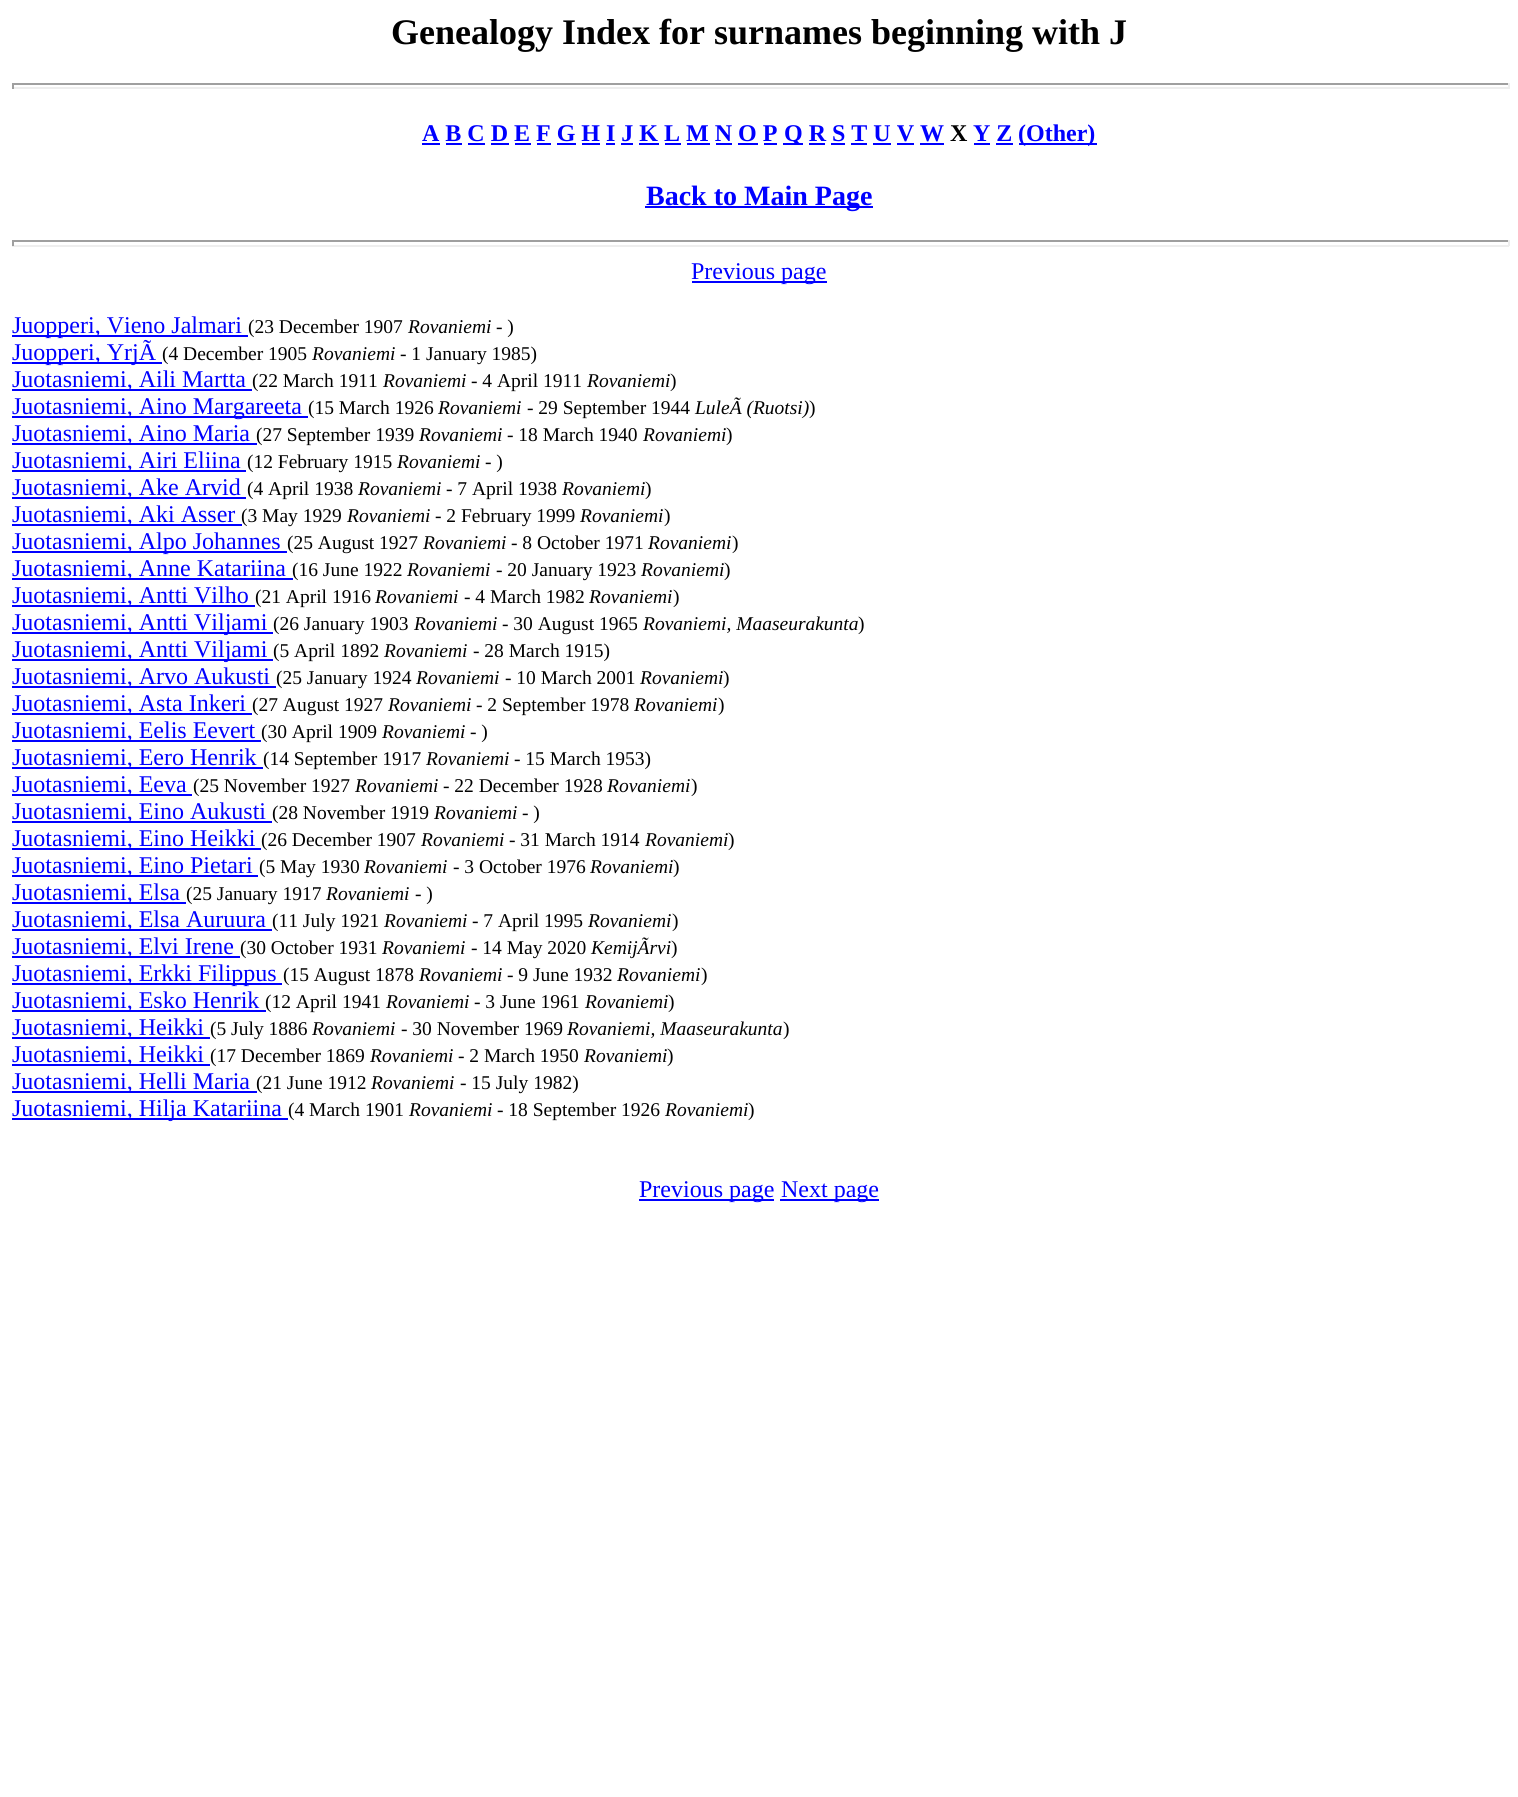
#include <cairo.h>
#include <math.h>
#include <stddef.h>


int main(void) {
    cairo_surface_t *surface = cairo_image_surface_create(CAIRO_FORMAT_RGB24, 1518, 1797);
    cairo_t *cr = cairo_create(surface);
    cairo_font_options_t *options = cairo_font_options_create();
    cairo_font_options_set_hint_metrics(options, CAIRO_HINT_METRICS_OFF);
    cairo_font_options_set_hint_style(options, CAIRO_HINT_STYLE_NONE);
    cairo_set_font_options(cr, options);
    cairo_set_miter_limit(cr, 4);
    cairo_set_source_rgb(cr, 1, 1, 1);
    cairo_paint(cr);
    cairo_select_font_face(cr, "Liberation Serif", CAIRO_FONT_SLANT_NORMAL, CAIRO_FONT_WEIGHT_BOLD);
    cairo_set_font_size(cr, 36);
    cairo_set_source_rgb(cr, 0, 0, 0);
    cairo_move_to(cr, 391, 44);
    cairo_show_text(cr, "Genealogy Index for surnames beginning with J");
    cairo_set_source_rgb(cr, 0.624, 0.624, 0.624);
    cairo_rectangle(cr, 12, 83, 1497, 2);
    cairo_fill(cr);
    cairo_set_source_rgb(cr, 0.933, 0.933, 0.933);
    cairo_rectangle(cr, 1508, 83, 2, 6);
    cairo_fill(cr);
    cairo_rectangle(cr, 12, 87, 1497, 2);
    cairo_fill(cr);
    cairo_set_source_rgb(cr, 0.624, 0.624, 0.624);
    cairo_rectangle(cr, 12, 83, 2, 6);
    cairo_fill(cr);
    cairo_set_font_size(cr, 24);
    cairo_set_source_rgb(cr, 0, 0, 1);
    cairo_move_to(cr, 422, 141);
    cairo_show_text(cr, "A B C D E F G H I J K L M N O P");
    cairo_rectangle(cr, 422, 143, 18, 2);
    cairo_fill(cr);
    cairo_rectangle(cr, 783, 143, 20, 2);
    cairo_fill(cr);
    cairo_move_to(cr, 784, 141);
    cairo_show_text(cr, "Q R S T U V W");
    cairo_set_source_rgb(cr, 0, 0, 0);
    cairo_move_to(cr, 950, 141);
    cairo_show_text(cr, "X");
    cairo_set_source_rgb(cr, 0, 0, 1);
    cairo_move_to(cr, 973, 141);
    cairo_show_text(cr, "Y Z");
    cairo_rectangle(cr, 974, 143, 16, 2);
    cairo_fill(cr);
    cairo_rectangle(cr, 1019, 143, 78, 2);
    cairo_fill(cr);
    cairo_move_to(cr, 1018, 141);
    cairo_show_text(cr, "(Other)");
    cairo_rectangle(cr, 446, 143, 16, 2);
    cairo_fill(cr);
    cairo_rectangle(cr, 468, 143, 17, 2);
    cairo_fill(cr);
    cairo_rectangle(cr, 491, 143, 18, 2);
    cairo_fill(cr);
    cairo_rectangle(cr, 515, 143, 16, 2);
    cairo_fill(cr);
    cairo_rectangle(cr, 537, 143, 14, 2);
    cairo_fill(cr);
    cairo_rectangle(cr, 557, 143, 19, 2);
    cairo_fill(cr);
    cairo_rectangle(cr, 582, 143, 18, 2);
    cairo_fill(cr);
    cairo_rectangle(cr, 606, 143, 9, 2);
    cairo_fill(cr);
    cairo_rectangle(cr, 621, 143, 12, 2);
    cairo_fill(cr);
    cairo_rectangle(cr, 639, 143, 20, 2);
    cairo_fill(cr);
    cairo_rectangle(cr, 665, 143, 16, 2);
    cairo_fill(cr);
    cairo_rectangle(cr, 687, 143, 23, 2);
    cairo_fill(cr);
    cairo_rectangle(cr, 716, 143, 16, 2);
    cairo_fill(cr);
    cairo_rectangle(cr, 738, 143, 20, 2);
    cairo_fill(cr);
    cairo_rectangle(cr, 764, 143, 13, 2);
    cairo_fill(cr);
    cairo_rectangle(cr, 809, 143, 16, 2);
    cairo_fill(cr);
    cairo_rectangle(cr, 831, 143, 14, 2);
    cairo_fill(cr);
    cairo_rectangle(cr, 851, 143, 16, 2);
    cairo_fill(cr);
    cairo_rectangle(cr, 873, 143, 18, 2);
    cairo_fill(cr);
    cairo_rectangle(cr, 897, 143, 17, 2);
    cairo_fill(cr);
    cairo_rectangle(cr, 920, 143, 24, 2);
    cairo_fill(cr);
    cairo_rectangle(cr, 996, 143, 17, 2);
    cairo_fill(cr);
    cairo_rectangle(cr, 645, 206, 228, 2);
    cairo_fill(cr);
    cairo_set_font_size(cr, 28);
    cairo_move_to(cr, 646, 205);
    cairo_show_text(cr, "Back to Main Page");
    cairo_set_source_rgb(cr, 0.624, 0.624, 0.624);
    cairo_rectangle(cr, 12, 240, 1497, 2);
    cairo_fill(cr);
    cairo_set_source_rgb(cr, 0.933, 0.933, 0.933);
    cairo_rectangle(cr, 1508, 240, 2, 6);
    cairo_fill(cr);
    cairo_rectangle(cr, 12, 245, 1497, 2);
    cairo_fill(cr);
    cairo_set_source_rgb(cr, 0.624, 0.624, 0.624);
    cairo_rectangle(cr, 12, 240, 2, 6);
    cairo_fill(cr);
    cairo_set_source_rgb(cr, 0, 0, 1);
    cairo_rectangle(cr, 692, 281, 135, 2);
    cairo_fill(cr);
    cairo_select_font_face(cr, "Liberation Serif", CAIRO_FONT_SLANT_NORMAL, CAIRO_FONT_WEIGHT_NORMAL);
    cairo_set_font_size(cr, 24);
    cairo_move_to(cr, 691, 279);
    cairo_show_text(cr, "Previous page");
    cairo_rectangle(cr, 12, 335, 236, 2);
    cairo_fill(cr);
    cairo_move_to(cr, 12, 333);
    cairo_show_text(cr, "Juopperi, Vieno Jalmari");
    cairo_set_font_size(cr, 19.5);
    cairo_set_source_rgb(cr, 0, 0, 0);
    cairo_move_to(cr, 248, 333);
    cairo_show_text(cr, "(23 December 1907");
    cairo_select_font_face(cr, "Liberation Serif", CAIRO_FONT_SLANT_ITALIC, CAIRO_FONT_WEIGHT_NORMAL);
    cairo_move_to(cr, 408, 333);
    cairo_show_text(cr, "Rovaniemi");
    cairo_select_font_face(cr, "Liberation Serif", CAIRO_FONT_SLANT_NORMAL, CAIRO_FONT_WEIGHT_NORMAL);
    cairo_move_to(cr, 496, 333);
    cairo_show_text(cr, "- )");
    cairo_set_source_rgb(cr, 0, 0, 1);
    cairo_rectangle(cr, 12, 362, 150, 2);
    cairo_fill(cr);
    cairo_set_font_size(cr, 24);
    cairo_move_to(cr, 12, 360);
    cairo_show_text(cr, "Juopperi, YrjÃ");
    cairo_set_font_size(cr, 19.5);
    cairo_set_source_rgb(cr, 0, 0, 0);
    cairo_move_to(cr, 162, 360);
    cairo_show_text(cr, "(4 December 1905");
    cairo_select_font_face(cr, "Liberation Serif", CAIRO_FONT_SLANT_ITALIC, CAIRO_FONT_WEIGHT_NORMAL);
    cairo_move_to(cr, 312, 360);
    cairo_show_text(cr, "Rovaniemi");
    cairo_select_font_face(cr, "Liberation Serif", CAIRO_FONT_SLANT_NORMAL, CAIRO_FONT_WEIGHT_NORMAL);
    cairo_move_to(cr, 400, 360);
    cairo_show_text(cr, "- 1 January 1985)");
    cairo_set_source_rgb(cr, 0, 0, 1);
    cairo_rectangle(cr, 12, 389, 240, 2);
    cairo_fill(cr);
    cairo_set_font_size(cr, 24);
    cairo_move_to(cr, 12, 387);
    cairo_show_text(cr, "Juotasniemi, Aili Martta");
    cairo_set_font_size(cr, 19.5);
    cairo_set_source_rgb(cr, 0, 0, 0);
    cairo_move_to(cr, 252, 387);
    cairo_show_text(cr, "(22 March 1911");
    cairo_select_font_face(cr, "Liberation Serif", CAIRO_FONT_SLANT_ITALIC, CAIRO_FONT_WEIGHT_NORMAL);
    cairo_move_to(cr, 383, 387);
    cairo_show_text(cr, "Rovaniemi");
    cairo_select_font_face(cr, "Liberation Serif", CAIRO_FONT_SLANT_NORMAL, CAIRO_FONT_WEIGHT_NORMAL);
    cairo_move_to(cr, 471, 387);
    cairo_show_text(cr, "- 4 April 1911");
    cairo_select_font_face(cr, "Liberation Serif", CAIRO_FONT_SLANT_ITALIC, CAIRO_FONT_WEIGHT_NORMAL);
    cairo_move_to(cr, 587, 387);
    cairo_show_text(cr, "Rovaniemi");
    cairo_select_font_face(cr, "Liberation Serif", CAIRO_FONT_SLANT_NORMAL, CAIRO_FONT_WEIGHT_NORMAL);
    cairo_move_to(cr, 670, 387);
    cairo_show_text(cr, ")");
    cairo_set_source_rgb(cr, 0, 0, 1);
    cairo_rectangle(cr, 12, 416, 296, 2);
    cairo_fill(cr);
    cairo_set_font_size(cr, 24);
    cairo_move_to(cr, 12, 414);
    cairo_show_text(cr, "Juotasniemi, Aino Margareeta");
    cairo_set_font_size(cr, 19.5);
    cairo_set_source_rgb(cr, 0, 0, 0);
    cairo_move_to(cr, 308, 414);
    cairo_show_text(cr, "(15 March 1926");
    cairo_select_font_face(cr, "Liberation Serif", CAIRO_FONT_SLANT_ITALIC, CAIRO_FONT_WEIGHT_NORMAL);
    cairo_move_to(cr, 438, 414);
    cairo_show_text(cr, "Rovaniemi");
    cairo_select_font_face(cr, "Liberation Serif", CAIRO_FONT_SLANT_NORMAL, CAIRO_FONT_WEIGHT_NORMAL);
    cairo_move_to(cr, 527, 414);
    cairo_show_text(cr, "- 29 September 1944");
    cairo_select_font_face(cr, "Liberation Serif", CAIRO_FONT_SLANT_ITALIC, CAIRO_FONT_WEIGHT_NORMAL);
    cairo_move_to(cr, 695, 414);
    cairo_show_text(cr, "LuleÃ (Ruotsi)");
    cairo_select_font_face(cr, "Liberation Serif", CAIRO_FONT_SLANT_NORMAL, CAIRO_FONT_WEIGHT_NORMAL);
    cairo_move_to(cr, 809, 414);
    cairo_show_text(cr, ")");
    cairo_set_source_rgb(cr, 0, 0, 1);
    cairo_rectangle(cr, 12, 443, 245, 2);
    cairo_fill(cr);
    cairo_set_font_size(cr, 24);
    cairo_move_to(cr, 12, 441);
    cairo_show_text(cr, "Juotasniemi, Aino Maria");
    cairo_set_font_size(cr, 19.5);
    cairo_set_source_rgb(cr, 0, 0, 0);
    cairo_move_to(cr, 256, 441);
    cairo_show_text(cr, "(27 September 1939");
    cairo_select_font_face(cr, "Liberation Serif", CAIRO_FONT_SLANT_ITALIC, CAIRO_FONT_WEIGHT_NORMAL);
    cairo_move_to(cr, 419, 441);
    cairo_show_text(cr, "Rovaniemi");
    cairo_select_font_face(cr, "Liberation Serif", CAIRO_FONT_SLANT_NORMAL, CAIRO_FONT_WEIGHT_NORMAL);
    cairo_move_to(cr, 507, 441);
    cairo_show_text(cr, "- 18 March 1940");
    cairo_select_font_face(cr, "Liberation Serif", CAIRO_FONT_SLANT_ITALIC, CAIRO_FONT_WEIGHT_NORMAL);
    cairo_move_to(cr, 643, 441);
    cairo_show_text(cr, "Rovaniemi");
    cairo_select_font_face(cr, "Liberation Serif", CAIRO_FONT_SLANT_NORMAL, CAIRO_FONT_WEIGHT_NORMAL);
    cairo_move_to(cr, 726, 441);
    cairo_show_text(cr, ")");
    cairo_set_source_rgb(cr, 0, 0, 1);
    cairo_rectangle(cr, 12, 470, 234, 2);
    cairo_fill(cr);
    cairo_set_font_size(cr, 24);
    cairo_move_to(cr, 12, 468);
    cairo_show_text(cr, "Juotasniemi, Airi Eliina");
    cairo_set_font_size(cr, 19.5);
    cairo_set_source_rgb(cr, 0, 0, 0);
    cairo_move_to(cr, 247, 468);
    cairo_show_text(cr, "(12 February 1915");
    cairo_select_font_face(cr, "Liberation Serif", CAIRO_FONT_SLANT_ITALIC, CAIRO_FONT_WEIGHT_NORMAL);
    cairo_move_to(cr, 397, 468);
    cairo_show_text(cr, "Rovaniemi");
    cairo_select_font_face(cr, "Liberation Serif", CAIRO_FONT_SLANT_NORMAL, CAIRO_FONT_WEIGHT_NORMAL);
    cairo_move_to(cr, 485, 468);
    cairo_show_text(cr, "- )");
    cairo_set_source_rgb(cr, 0, 0, 1);
    cairo_rectangle(cr, 12, 497, 234, 2);
    cairo_fill(cr);
    cairo_set_font_size(cr, 24);
    cairo_move_to(cr, 12, 495);
    cairo_show_text(cr, "Juotasniemi, Ake Arvid");
    cairo_set_font_size(cr, 19.5);
    cairo_set_source_rgb(cr, 0, 0, 0);
    cairo_move_to(cr, 247, 495);
    cairo_show_text(cr, "(4 April 1938");
    cairo_select_font_face(cr, "Liberation Serif", CAIRO_FONT_SLANT_ITALIC, CAIRO_FONT_WEIGHT_NORMAL);
    cairo_move_to(cr, 358, 495);
    cairo_show_text(cr, "Rovaniemi");
    cairo_select_font_face(cr, "Liberation Serif", CAIRO_FONT_SLANT_NORMAL, CAIRO_FONT_WEIGHT_NORMAL);
    cairo_move_to(cr, 446, 495);
    cairo_show_text(cr, "- 7 April 1938");
    cairo_select_font_face(cr, "Liberation Serif", CAIRO_FONT_SLANT_ITALIC, CAIRO_FONT_WEIGHT_NORMAL);
    cairo_move_to(cr, 562, 495);
    cairo_show_text(cr, "Rovaniemi");
    cairo_select_font_face(cr, "Liberation Serif", CAIRO_FONT_SLANT_NORMAL, CAIRO_FONT_WEIGHT_NORMAL);
    cairo_move_to(cr, 645, 495);
    cairo_show_text(cr, ")");
    cairo_set_source_rgb(cr, 0, 0, 1);
    cairo_rectangle(cr, 12, 524, 230, 2);
    cairo_fill(cr);
    cairo_set_font_size(cr, 24);
    cairo_move_to(cr, 12, 522);
    cairo_show_text(cr, "Juotasniemi, Aki Asser");
    cairo_set_font_size(cr, 19.5);
    cairo_set_source_rgb(cr, 0, 0, 0);
    cairo_move_to(cr, 241, 522);
    cairo_show_text(cr, "(3 May 1929");
    cairo_select_font_face(cr, "Liberation Serif", CAIRO_FONT_SLANT_ITALIC, CAIRO_FONT_WEIGHT_NORMAL);
    cairo_move_to(cr, 347, 522);
    cairo_show_text(cr, "Rovaniemi");
    cairo_select_font_face(cr, "Liberation Serif", CAIRO_FONT_SLANT_NORMAL, CAIRO_FONT_WEIGHT_NORMAL);
    cairo_move_to(cr, 435, 522);
    cairo_show_text(cr, "- 2 February 1999");
    cairo_select_font_face(cr, "Liberation Serif", CAIRO_FONT_SLANT_ITALIC, CAIRO_FONT_WEIGHT_NORMAL);
    cairo_move_to(cr, 580, 522);
    cairo_show_text(cr, "Rovaniemi");
    cairo_select_font_face(cr, "Liberation Serif", CAIRO_FONT_SLANT_NORMAL, CAIRO_FONT_WEIGHT_NORMAL);
    cairo_move_to(cr, 664, 522);
    cairo_show_text(cr, ")");
    cairo_set_source_rgb(cr, 0, 0, 1);
    cairo_rectangle(cr, 12, 551, 275, 2);
    cairo_fill(cr);
    cairo_set_font_size(cr, 24);
    cairo_move_to(cr, 12, 549);
    cairo_show_text(cr, "Juotasniemi, Alpo Johannes");
    cairo_set_font_size(cr, 19.5);
    cairo_set_source_rgb(cr, 0, 0, 0);
    cairo_move_to(cr, 287, 549);
    cairo_show_text(cr, "(25 August 1927");
    cairo_select_font_face(cr, "Liberation Serif", CAIRO_FONT_SLANT_ITALIC, CAIRO_FONT_WEIGHT_NORMAL);
    cairo_move_to(cr, 423, 549);
    cairo_show_text(cr, "Rovaniemi");
    cairo_select_font_face(cr, "Liberation Serif", CAIRO_FONT_SLANT_NORMAL, CAIRO_FONT_WEIGHT_NORMAL);
    cairo_move_to(cr, 511, 549);
    cairo_show_text(cr, "- 8 October 1971");
    cairo_select_font_face(cr, "Liberation Serif", CAIRO_FONT_SLANT_ITALIC, CAIRO_FONT_WEIGHT_NORMAL);
    cairo_move_to(cr, 648, 549);
    cairo_show_text(cr, "Rovaniemi");
    cairo_select_font_face(cr, "Liberation Serif", CAIRO_FONT_SLANT_NORMAL, CAIRO_FONT_WEIGHT_NORMAL);
    cairo_move_to(cr, 732, 549);
    cairo_show_text(cr, ")");
    cairo_set_source_rgb(cr, 0, 0, 1);
    cairo_rectangle(cr, 12, 578, 281, 2);
    cairo_fill(cr);
    cairo_set_font_size(cr, 24);
    cairo_move_to(cr, 12, 576);
    cairo_show_text(cr, "Juotasniemi, Anne Katariina");
    cairo_set_font_size(cr, 19.5);
    cairo_set_source_rgb(cr, 0, 0, 0);
    cairo_move_to(cr, 292, 576);
    cairo_show_text(cr, "(16 June 1922");
    cairo_select_font_face(cr, "Liberation Serif", CAIRO_FONT_SLANT_ITALIC, CAIRO_FONT_WEIGHT_NORMAL);
    cairo_move_to(cr, 407, 576);
    cairo_show_text(cr, "Rovaniemi");
    cairo_select_font_face(cr, "Liberation Serif", CAIRO_FONT_SLANT_NORMAL, CAIRO_FONT_WEIGHT_NORMAL);
    cairo_move_to(cr, 496, 576);
    cairo_show_text(cr, "- 20 January 1923");
    cairo_select_font_face(cr, "Liberation Serif", CAIRO_FONT_SLANT_ITALIC, CAIRO_FONT_WEIGHT_NORMAL);
    cairo_move_to(cr, 641, 576);
    cairo_show_text(cr, "Rovaniemi");
    cairo_select_font_face(cr, "Liberation Serif", CAIRO_FONT_SLANT_NORMAL, CAIRO_FONT_WEIGHT_NORMAL);
    cairo_move_to(cr, 724, 576);
    cairo_show_text(cr, ")");
    cairo_set_source_rgb(cr, 0, 0, 1);
    cairo_rectangle(cr, 12, 605, 243, 2);
    cairo_fill(cr);
    cairo_set_font_size(cr, 24);
    cairo_move_to(cr, 12, 603);
    cairo_show_text(cr, "Juotasniemi, Antti Vilho");
    cairo_set_font_size(cr, 19.5);
    cairo_set_source_rgb(cr, 0, 0, 0);
    cairo_move_to(cr, 255, 603);
    cairo_show_text(cr, "(21 April 1916");
    cairo_select_font_face(cr, "Liberation Serif", CAIRO_FONT_SLANT_ITALIC, CAIRO_FONT_WEIGHT_NORMAL);
    cairo_move_to(cr, 375, 603);
    cairo_show_text(cr, "Rovaniemi");
    cairo_select_font_face(cr, "Liberation Serif", CAIRO_FONT_SLANT_NORMAL, CAIRO_FONT_WEIGHT_NORMAL);
    cairo_move_to(cr, 464, 603);
    cairo_show_text(cr, "- 4 March 1982");
    cairo_select_font_face(cr, "Liberation Serif", CAIRO_FONT_SLANT_ITALIC, CAIRO_FONT_WEIGHT_NORMAL);
    cairo_move_to(cr, 589, 603);
    cairo_show_text(cr, "Rovaniemi");
    cairo_select_font_face(cr, "Liberation Serif", CAIRO_FONT_SLANT_NORMAL, CAIRO_FONT_WEIGHT_NORMAL);
    cairo_move_to(cr, 673, 603);
    cairo_show_text(cr, ")");
    cairo_set_source_rgb(cr, 0, 0, 1);
    cairo_rectangle(cr, 12, 632, 261, 2);
    cairo_fill(cr);
    cairo_set_font_size(cr, 24);
    cairo_move_to(cr, 12, 630);
    cairo_show_text(cr, "Juotasniemi, Antti Viljami");
    cairo_set_font_size(cr, 19.5);
    cairo_set_source_rgb(cr, 0, 0, 0);
    cairo_move_to(cr, 273, 630);
    cairo_show_text(cr, "(26 January 1903");
    cairo_select_font_face(cr, "Liberation Serif", CAIRO_FONT_SLANT_ITALIC, CAIRO_FONT_WEIGHT_NORMAL);
    cairo_move_to(cr, 414, 630);
    cairo_show_text(cr, "Rovaniemi");
    cairo_select_font_face(cr, "Liberation Serif", CAIRO_FONT_SLANT_NORMAL, CAIRO_FONT_WEIGHT_NORMAL);
    cairo_move_to(cr, 502, 630);
    cairo_show_text(cr, "- 30 August 1965");
    cairo_select_font_face(cr, "Liberation Serif", CAIRO_FONT_SLANT_ITALIC, CAIRO_FONT_WEIGHT_NORMAL);
    cairo_move_to(cr, 643, 630);
    cairo_show_text(cr, "Rovaniemi, Maaseurakunta");
    cairo_select_font_face(cr, "Liberation Serif", CAIRO_FONT_SLANT_NORMAL, CAIRO_FONT_WEIGHT_NORMAL);
    cairo_move_to(cr, 858, 630);
    cairo_show_text(cr, ")");
    cairo_set_source_rgb(cr, 0, 0, 1);
    cairo_rectangle(cr, 12, 659, 261, 2);
    cairo_fill(cr);
    cairo_set_font_size(cr, 24);
    cairo_move_to(cr, 12, 657);
    cairo_show_text(cr, "Juotasniemi, Antti Viljami");
    cairo_set_font_size(cr, 19.5);
    cairo_set_source_rgb(cr, 0, 0, 0);
    cairo_move_to(cr, 273, 657);
    cairo_show_text(cr, "(5 April 1892");
    cairo_select_font_face(cr, "Liberation Serif", CAIRO_FONT_SLANT_ITALIC, CAIRO_FONT_WEIGHT_NORMAL);
    cairo_move_to(cr, 384, 657);
    cairo_show_text(cr, "Rovaniemi");
    cairo_select_font_face(cr, "Liberation Serif", CAIRO_FONT_SLANT_NORMAL, CAIRO_FONT_WEIGHT_NORMAL);
    cairo_move_to(cr, 473, 657);
    cairo_show_text(cr, "- 28 March 1915)");
    cairo_set_source_rgb(cr, 0, 0, 1);
    cairo_rectangle(cr, 12, 686, 264, 2);
    cairo_fill(cr);
    cairo_set_font_size(cr, 24);
    cairo_move_to(cr, 12, 684);
    cairo_show_text(cr, "Juotasniemi, Arvo Aukusti");
    cairo_set_font_size(cr, 19.5);
    cairo_set_source_rgb(cr, 0, 0, 0);
    cairo_move_to(cr, 276, 684);
    cairo_show_text(cr, "(25 January 1924");
    cairo_select_font_face(cr, "Liberation Serif", CAIRO_FONT_SLANT_ITALIC, CAIRO_FONT_WEIGHT_NORMAL);
    cairo_move_to(cr, 416, 684);
    cairo_show_text(cr, "Rovaniemi");
    cairo_select_font_face(cr, "Liberation Serif", CAIRO_FONT_SLANT_NORMAL, CAIRO_FONT_WEIGHT_NORMAL);
    cairo_move_to(cr, 505, 684);
    cairo_show_text(cr, "- 10 March 2001");
    cairo_select_font_face(cr, "Liberation Serif", CAIRO_FONT_SLANT_ITALIC, CAIRO_FONT_WEIGHT_NORMAL);
    cairo_move_to(cr, 640, 684);
    cairo_show_text(cr, "Rovaniemi");
    cairo_select_font_face(cr, "Liberation Serif", CAIRO_FONT_SLANT_NORMAL, CAIRO_FONT_WEIGHT_NORMAL);
    cairo_move_to(cr, 723, 684);
    cairo_show_text(cr, ")");
    cairo_set_source_rgb(cr, 0, 0, 1);
    cairo_rectangle(cr, 12, 713, 240, 2);
    cairo_fill(cr);
    cairo_set_font_size(cr, 24);
    cairo_move_to(cr, 12, 711);
    cairo_show_text(cr, "Juotasniemi, Asta Inkeri");
    cairo_set_font_size(cr, 19.5);
    cairo_set_source_rgb(cr, 0, 0, 0);
    cairo_move_to(cr, 252, 711);
    cairo_show_text(cr, "(27 August 1927");
    cairo_select_font_face(cr, "Liberation Serif", CAIRO_FONT_SLANT_ITALIC, CAIRO_FONT_WEIGHT_NORMAL);
    cairo_move_to(cr, 388, 711);
    cairo_show_text(cr, "Rovaniemi");
    cairo_select_font_face(cr, "Liberation Serif", CAIRO_FONT_SLANT_NORMAL, CAIRO_FONT_WEIGHT_NORMAL);
    cairo_move_to(cr, 476, 711);
    cairo_show_text(cr, "- 2 September 1978");
    cairo_select_font_face(cr, "Liberation Serif", CAIRO_FONT_SLANT_ITALIC, CAIRO_FONT_WEIGHT_NORMAL);
    cairo_move_to(cr, 634, 711);
    cairo_show_text(cr, "Rovaniemi");
    cairo_select_font_face(cr, "Liberation Serif", CAIRO_FONT_SLANT_NORMAL, CAIRO_FONT_WEIGHT_NORMAL);
    cairo_move_to(cr, 718, 711);
    cairo_show_text(cr, ")");
    cairo_set_source_rgb(cr, 0, 0, 1);
    cairo_rectangle(cr, 12, 740, 249, 2);
    cairo_fill(cr);
    cairo_set_font_size(cr, 24);
    cairo_move_to(cr, 12, 738);
    cairo_show_text(cr, "Juotasniemi, Eelis Eevert");
    cairo_set_font_size(cr, 19.5);
    cairo_set_source_rgb(cr, 0, 0, 0);
    cairo_move_to(cr, 261, 738);
    cairo_show_text(cr, "(30 April 1909");
    cairo_select_font_face(cr, "Liberation Serif", CAIRO_FONT_SLANT_ITALIC, CAIRO_FONT_WEIGHT_NORMAL);
    cairo_move_to(cr, 382, 738);
    cairo_show_text(cr, "Rovaniemi");
    cairo_select_font_face(cr, "Liberation Serif", CAIRO_FONT_SLANT_NORMAL, CAIRO_FONT_WEIGHT_NORMAL);
    cairo_move_to(cr, 470, 738);
    cairo_show_text(cr, "- )");
    cairo_set_source_rgb(cr, 0, 0, 1);
    cairo_rectangle(cr, 12, 767, 251, 2);
    cairo_fill(cr);
    cairo_set_font_size(cr, 24);
    cairo_move_to(cr, 12, 765);
    cairo_show_text(cr, "Juotasniemi, Eero Henrik");
    cairo_set_font_size(cr, 19.5);
    cairo_set_source_rgb(cr, 0, 0, 0);
    cairo_move_to(cr, 263, 765);
    cairo_show_text(cr, "(14 September 1917");
    cairo_select_font_face(cr, "Liberation Serif", CAIRO_FONT_SLANT_ITALIC, CAIRO_FONT_WEIGHT_NORMAL);
    cairo_move_to(cr, 426, 765);
    cairo_show_text(cr, "Rovaniemi");
    cairo_select_font_face(cr, "Liberation Serif", CAIRO_FONT_SLANT_NORMAL, CAIRO_FONT_WEIGHT_NORMAL);
    cairo_move_to(cr, 514, 765);
    cairo_show_text(cr, "- 15 March 1953)");
    cairo_set_source_rgb(cr, 0, 0, 1);
    cairo_rectangle(cr, 12, 794, 180, 2);
    cairo_fill(cr);
    cairo_set_font_size(cr, 24);
    cairo_move_to(cr, 12, 792);
    cairo_show_text(cr, "Juotasniemi, Eeva");
    cairo_set_font_size(cr, 19.5);
    cairo_set_source_rgb(cr, 0, 0, 0);
    cairo_move_to(cr, 193, 792);
    cairo_show_text(cr, "(25 November 1927");
    cairo_select_font_face(cr, "Liberation Serif", CAIRO_FONT_SLANT_ITALIC, CAIRO_FONT_WEIGHT_NORMAL);
    cairo_move_to(cr, 355, 792);
    cairo_show_text(cr, "Rovaniemi");
    cairo_select_font_face(cr, "Liberation Serif", CAIRO_FONT_SLANT_NORMAL, CAIRO_FONT_WEIGHT_NORMAL);
    cairo_move_to(cr, 443, 792);
    cairo_show_text(cr, "- 22 December 1928");
    cairo_select_font_face(cr, "Liberation Serif", CAIRO_FONT_SLANT_ITALIC, CAIRO_FONT_WEIGHT_NORMAL);
    cairo_move_to(cr, 607, 792);
    cairo_show_text(cr, "Rovaniemi");
    cairo_select_font_face(cr, "Liberation Serif", CAIRO_FONT_SLANT_NORMAL, CAIRO_FONT_WEIGHT_NORMAL);
    cairo_move_to(cr, 691, 792);
    cairo_show_text(cr, ")");
    cairo_set_source_rgb(cr, 0, 0, 1);
    cairo_rectangle(cr, 12, 821, 260, 2);
    cairo_fill(cr);
    cairo_set_font_size(cr, 24);
    cairo_move_to(cr, 12, 819);
    cairo_show_text(cr, "Juotasniemi, Eino Aukusti");
    cairo_set_font_size(cr, 19.5);
    cairo_set_source_rgb(cr, 0, 0, 0);
    cairo_move_to(cr, 272, 819);
    cairo_show_text(cr, "(28 November 1919");
    cairo_select_font_face(cr, "Liberation Serif", CAIRO_FONT_SLANT_ITALIC, CAIRO_FONT_WEIGHT_NORMAL);
    cairo_move_to(cr, 434, 819);
    cairo_show_text(cr, "Rovaniemi");
    cairo_select_font_face(cr, "Liberation Serif", CAIRO_FONT_SLANT_NORMAL, CAIRO_FONT_WEIGHT_NORMAL);
    cairo_move_to(cr, 522, 819);
    cairo_show_text(cr, "- )");
    cairo_set_source_rgb(cr, 0, 0, 1);
    cairo_rectangle(cr, 12, 848, 249, 2);
    cairo_fill(cr);
    cairo_set_font_size(cr, 24);
    cairo_move_to(cr, 12, 846);
    cairo_show_text(cr, "Juotasniemi, Eino Heikki");
    cairo_set_font_size(cr, 19.5);
    cairo_set_source_rgb(cr, 0, 0, 0);
    cairo_move_to(cr, 261, 846);
    cairo_show_text(cr, "(26 December 1907");
    cairo_select_font_face(cr, "Liberation Serif", CAIRO_FONT_SLANT_ITALIC, CAIRO_FONT_WEIGHT_NORMAL);
    cairo_move_to(cr, 421, 846);
    cairo_show_text(cr, "Rovaniemi");
    cairo_select_font_face(cr, "Liberation Serif", CAIRO_FONT_SLANT_NORMAL, CAIRO_FONT_WEIGHT_NORMAL);
    cairo_move_to(cr, 509, 846);
    cairo_show_text(cr, "- 31 March 1914");
    cairo_select_font_face(cr, "Liberation Serif", CAIRO_FONT_SLANT_ITALIC, CAIRO_FONT_WEIGHT_NORMAL);
    cairo_move_to(cr, 645, 846);
    cairo_show_text(cr, "Rovaniemi");
    cairo_select_font_face(cr, "Liberation Serif", CAIRO_FONT_SLANT_NORMAL, CAIRO_FONT_WEIGHT_NORMAL);
    cairo_move_to(cr, 728, 846);
    cairo_show_text(cr, ")");
    cairo_set_source_rgb(cr, 0, 0, 1);
    cairo_rectangle(cr, 12, 875, 246, 2);
    cairo_fill(cr);
    cairo_set_font_size(cr, 24);
    cairo_move_to(cr, 12, 873);
    cairo_show_text(cr, "Juotasniemi, Eino Pietari");
    cairo_set_font_size(cr, 19.5);
    cairo_set_source_rgb(cr, 0, 0, 0);
    cairo_move_to(cr, 259, 873);
    cairo_show_text(cr, "(5 May 1930");
    cairo_select_font_face(cr, "Liberation Serif", CAIRO_FONT_SLANT_ITALIC, CAIRO_FONT_WEIGHT_NORMAL);
    cairo_move_to(cr, 364, 873);
    cairo_show_text(cr, "Rovaniemi");
    cairo_select_font_face(cr, "Liberation Serif", CAIRO_FONT_SLANT_NORMAL, CAIRO_FONT_WEIGHT_NORMAL);
    cairo_move_to(cr, 453, 873);
    cairo_show_text(cr, "- 3 October 1976");
    cairo_select_font_face(cr, "Liberation Serif", CAIRO_FONT_SLANT_ITALIC, CAIRO_FONT_WEIGHT_NORMAL);
    cairo_move_to(cr, 590, 873);
    cairo_show_text(cr, "Rovaniemi");
    cairo_select_font_face(cr, "Liberation Serif", CAIRO_FONT_SLANT_NORMAL, CAIRO_FONT_WEIGHT_NORMAL);
    cairo_move_to(cr, 673, 873);
    cairo_show_text(cr, ")");
    cairo_set_source_rgb(cr, 0, 0, 1);
    cairo_rectangle(cr, 12, 902, 174, 2);
    cairo_fill(cr);
    cairo_set_font_size(cr, 24);
    cairo_move_to(cr, 12, 900);
    cairo_show_text(cr, "Juotasniemi, Elsa");
    cairo_set_font_size(cr, 19.5);
    cairo_set_source_rgb(cr, 0, 0, 0);
    cairo_move_to(cr, 186, 900);
    cairo_show_text(cr, "(25 January 1917");
    cairo_select_font_face(cr, "Liberation Serif", CAIRO_FONT_SLANT_ITALIC, CAIRO_FONT_WEIGHT_NORMAL);
    cairo_move_to(cr, 326, 900);
    cairo_show_text(cr, "Rovaniemi");
    cairo_select_font_face(cr, "Liberation Serif", CAIRO_FONT_SLANT_NORMAL, CAIRO_FONT_WEIGHT_NORMAL);
    cairo_move_to(cr, 415, 900);
    cairo_show_text(cr, "- )");
    cairo_set_source_rgb(cr, 0, 0, 1);
    cairo_rectangle(cr, 12, 929, 260, 2);
    cairo_fill(cr);
    cairo_set_font_size(cr, 24);
    cairo_move_to(cr, 12, 927);
    cairo_show_text(cr, "Juotasniemi, Elsa Auruura");
    cairo_set_font_size(cr, 19.5);
    cairo_set_source_rgb(cr, 0, 0, 0);
    cairo_move_to(cr, 272, 927);
    cairo_show_text(cr, "(11 July 1921");
    cairo_select_font_face(cr, "Liberation Serif", CAIRO_FONT_SLANT_ITALIC, CAIRO_FONT_WEIGHT_NORMAL);
    cairo_move_to(cr, 384, 927);
    cairo_show_text(cr, "Rovaniemi");
    cairo_select_font_face(cr, "Liberation Serif", CAIRO_FONT_SLANT_NORMAL, CAIRO_FONT_WEIGHT_NORMAL);
    cairo_move_to(cr, 472, 927);
    cairo_show_text(cr, "- 7 April 1995");
    cairo_select_font_face(cr, "Liberation Serif", CAIRO_FONT_SLANT_ITALIC, CAIRO_FONT_WEIGHT_NORMAL);
    cairo_move_to(cr, 588, 927);
    cairo_show_text(cr, "Rovaniemi");
    cairo_select_font_face(cr, "Liberation Serif", CAIRO_FONT_SLANT_NORMAL, CAIRO_FONT_WEIGHT_NORMAL);
    cairo_move_to(cr, 672, 927);
    cairo_show_text(cr, ")");
    cairo_set_source_rgb(cr, 0, 0, 1);
    cairo_rectangle(cr, 12, 956, 228, 2);
    cairo_fill(cr);
    cairo_set_font_size(cr, 24);
    cairo_move_to(cr, 12, 954);
    cairo_show_text(cr, "Juotasniemi, Elvi Irene");
    cairo_set_font_size(cr, 19.5);
    cairo_set_source_rgb(cr, 0, 0, 0);
    cairo_move_to(cr, 240, 954);
    cairo_show_text(cr, "(30 October 1931");
    cairo_select_font_face(cr, "Liberation Serif", CAIRO_FONT_SLANT_ITALIC, CAIRO_FONT_WEIGHT_NORMAL);
    cairo_move_to(cr, 382, 954);
    cairo_show_text(cr, "Rovaniemi");
    cairo_select_font_face(cr, "Liberation Serif", CAIRO_FONT_SLANT_NORMAL, CAIRO_FONT_WEIGHT_NORMAL);
    cairo_move_to(cr, 471, 954);
    cairo_show_text(cr, "- 14 May 2020");
    cairo_select_font_face(cr, "Liberation Serif", CAIRO_FONT_SLANT_ITALIC, CAIRO_FONT_WEIGHT_NORMAL);
    cairo_move_to(cr, 591, 954);
    cairo_show_text(cr, "KemijÃrvi");
    cairo_select_font_face(cr, "Liberation Serif", CAIRO_FONT_SLANT_NORMAL, CAIRO_FONT_WEIGHT_NORMAL);
    cairo_move_to(cr, 671, 954);
    cairo_show_text(cr, ")");
    cairo_set_source_rgb(cr, 0, 0, 1);
    cairo_rectangle(cr, 12, 983, 270, 2);
    cairo_fill(cr);
    cairo_set_font_size(cr, 24);
    cairo_move_to(cr, 12, 981);
    cairo_show_text(cr, "Juotasniemi, Erkki Filippus");
    cairo_set_font_size(cr, 19.5);
    cairo_set_source_rgb(cr, 0, 0, 0);
    cairo_move_to(cr, 283, 981);
    cairo_show_text(cr, "(15 August 1878");
    cairo_select_font_face(cr, "Liberation Serif", CAIRO_FONT_SLANT_ITALIC, CAIRO_FONT_WEIGHT_NORMAL);
    cairo_move_to(cr, 419, 981);
    cairo_show_text(cr, "Rovaniemi");
    cairo_select_font_face(cr, "Liberation Serif", CAIRO_FONT_SLANT_NORMAL, CAIRO_FONT_WEIGHT_NORMAL);
    cairo_move_to(cr, 507, 981);
    cairo_show_text(cr, "- 9 June 1932");
    cairo_select_font_face(cr, "Liberation Serif", CAIRO_FONT_SLANT_ITALIC, CAIRO_FONT_WEIGHT_NORMAL);
    cairo_move_to(cr, 617, 981);
    cairo_show_text(cr, "Rovaniemi");
    cairo_select_font_face(cr, "Liberation Serif", CAIRO_FONT_SLANT_NORMAL, CAIRO_FONT_WEIGHT_NORMAL);
    cairo_move_to(cr, 701, 981);
    cairo_show_text(cr, ")");
    cairo_set_source_rgb(cr, 0, 0, 1);
    cairo_rectangle(cr, 12, 1010, 254, 2);
    cairo_fill(cr);
    cairo_set_font_size(cr, 24);
    cairo_move_to(cr, 12, 1008);
    cairo_show_text(cr, "Juotasniemi, Esko Henrik");
    cairo_set_font_size(cr, 19.5);
    cairo_set_source_rgb(cr, 0, 0, 0);
    cairo_move_to(cr, 265, 1008);
    cairo_show_text(cr, "(12 April 1941");
    cairo_select_font_face(cr, "Liberation Serif", CAIRO_FONT_SLANT_ITALIC, CAIRO_FONT_WEIGHT_NORMAL);
    cairo_move_to(cr, 386, 1008);
    cairo_show_text(cr, "Rovaniemi");
    cairo_select_font_face(cr, "Liberation Serif", CAIRO_FONT_SLANT_NORMAL, CAIRO_FONT_WEIGHT_NORMAL);
    cairo_move_to(cr, 474, 1008);
    cairo_show_text(cr, "- 3 June 1961");
    cairo_select_font_face(cr, "Liberation Serif", CAIRO_FONT_SLANT_ITALIC, CAIRO_FONT_WEIGHT_NORMAL);
    cairo_move_to(cr, 585, 1008);
    cairo_show_text(cr, "Rovaniemi");
    cairo_select_font_face(cr, "Liberation Serif", CAIRO_FONT_SLANT_NORMAL, CAIRO_FONT_WEIGHT_NORMAL);
    cairo_move_to(cr, 668, 1008);
    cairo_show_text(cr, ")");
    cairo_set_source_rgb(cr, 0, 0, 1);
    cairo_rectangle(cr, 12, 1037, 198, 2);
    cairo_fill(cr);
    cairo_set_font_size(cr, 24);
    cairo_move_to(cr, 12, 1035);
    cairo_show_text(cr, "Juotasniemi, Heikki");
    cairo_set_font_size(cr, 19.5);
    cairo_set_source_rgb(cr, 0, 0, 0);
    cairo_move_to(cr, 210, 1035);
    cairo_show_text(cr, "(5 July 1886");
    cairo_select_font_face(cr, "Liberation Serif", CAIRO_FONT_SLANT_ITALIC, CAIRO_FONT_WEIGHT_NORMAL);
    cairo_move_to(cr, 312, 1035);
    cairo_show_text(cr, "Rovaniemi");
    cairo_select_font_face(cr, "Liberation Serif", CAIRO_FONT_SLANT_NORMAL, CAIRO_FONT_WEIGHT_NORMAL);
    cairo_move_to(cr, 401, 1035);
    cairo_show_text(cr, "- 30 November 1969");
    cairo_select_font_face(cr, "Liberation Serif", CAIRO_FONT_SLANT_ITALIC, CAIRO_FONT_WEIGHT_NORMAL);
    cairo_move_to(cr, 567, 1035);
    cairo_show_text(cr, "Rovaniemi, Maaseurakunta");
    cairo_select_font_face(cr, "Liberation Serif", CAIRO_FONT_SLANT_NORMAL, CAIRO_FONT_WEIGHT_NORMAL);
    cairo_move_to(cr, 783, 1035);
    cairo_show_text(cr, ")");
    cairo_set_source_rgb(cr, 0, 0, 1);
    cairo_rectangle(cr, 12, 1064, 198, 2);
    cairo_fill(cr);
    cairo_set_font_size(cr, 24);
    cairo_move_to(cr, 12, 1062);
    cairo_show_text(cr, "Juotasniemi, Heikki");
    cairo_set_font_size(cr, 19.5);
    cairo_set_source_rgb(cr, 0, 0, 0);
    cairo_move_to(cr, 210, 1062);
    cairo_show_text(cr, "(17 December 1869");
    cairo_select_font_face(cr, "Liberation Serif", CAIRO_FONT_SLANT_ITALIC, CAIRO_FONT_WEIGHT_NORMAL);
    cairo_move_to(cr, 370, 1062);
    cairo_show_text(cr, "Rovaniemi");
    cairo_select_font_face(cr, "Liberation Serif", CAIRO_FONT_SLANT_NORMAL, CAIRO_FONT_WEIGHT_NORMAL);
    cairo_move_to(cr, 458, 1062);
    cairo_show_text(cr, "- 2 March 1950");
    cairo_select_font_face(cr, "Liberation Serif", CAIRO_FONT_SLANT_ITALIC, CAIRO_FONT_WEIGHT_NORMAL);
    cairo_move_to(cr, 584, 1062);
    cairo_show_text(cr, "Rovaniemi");
    cairo_select_font_face(cr, "Liberation Serif", CAIRO_FONT_SLANT_NORMAL, CAIRO_FONT_WEIGHT_NORMAL);
    cairo_move_to(cr, 667, 1062);
    cairo_show_text(cr, ")");
    cairo_set_source_rgb(cr, 0, 0, 1);
    cairo_rectangle(cr, 12, 1091, 245, 2);
    cairo_fill(cr);
    cairo_set_font_size(cr, 24);
    cairo_move_to(cr, 12, 1089);
    cairo_show_text(cr, "Juotasniemi, Helli Maria");
    cairo_set_font_size(cr, 19.5);
    cairo_set_source_rgb(cr, 0, 0, 0);
    cairo_move_to(cr, 256, 1089);
    cairo_show_text(cr, "(21 June 1912");
    cairo_select_font_face(cr, "Liberation Serif", CAIRO_FONT_SLANT_ITALIC, CAIRO_FONT_WEIGHT_NORMAL);
    cairo_move_to(cr, 371, 1089);
    cairo_show_text(cr, "Rovaniemi");
    cairo_select_font_face(cr, "Liberation Serif", CAIRO_FONT_SLANT_NORMAL, CAIRO_FONT_WEIGHT_NORMAL);
    cairo_move_to(cr, 460, 1089);
    cairo_show_text(cr, "- 15 July 1982)");
    cairo_set_source_rgb(cr, 0, 0, 1);
    cairo_rectangle(cr, 12, 1118, 276, 2);
    cairo_fill(cr);
    cairo_set_font_size(cr, 24);
    cairo_move_to(cr, 12, 1116);
    cairo_show_text(cr, "Juotasniemi, Hilja Katariina");
    cairo_set_font_size(cr, 19.5);
    cairo_set_source_rgb(cr, 0, 0, 0);
    cairo_move_to(cr, 288, 1116);
    cairo_show_text(cr, "(4 March 1901");
    cairo_select_font_face(cr, "Liberation Serif", CAIRO_FONT_SLANT_ITALIC, CAIRO_FONT_WEIGHT_NORMAL);
    cairo_move_to(cr, 409, 1116);
    cairo_show_text(cr, "Rovaniemi");
    cairo_select_font_face(cr, "Liberation Serif", CAIRO_FONT_SLANT_NORMAL, CAIRO_FONT_WEIGHT_NORMAL);
    cairo_move_to(cr, 497, 1116);
    cairo_show_text(cr, "- 18 September 1926");
    cairo_select_font_face(cr, "Liberation Serif", CAIRO_FONT_SLANT_ITALIC, CAIRO_FONT_WEIGHT_NORMAL);
    cairo_move_to(cr, 665, 1116);
    cairo_show_text(cr, "Rovaniemi");
    cairo_select_font_face(cr, "Liberation Serif", CAIRO_FONT_SLANT_NORMAL, CAIRO_FONT_WEIGHT_NORMAL);
    cairo_move_to(cr, 748, 1116);
    cairo_show_text(cr, ")");
    cairo_set_source_rgb(cr, 0, 0, 1);
    cairo_rectangle(cr, 639, 1199, 135, 2);
    cairo_fill(cr);
    cairo_set_font_size(cr, 24);
    cairo_move_to(cr, 639, 1197);
    cairo_show_text(cr, "Previous page");
    cairo_rectangle(cr, 780, 1199, 99, 2);
    cairo_fill(cr);
    cairo_move_to(cr, 781, 1197);
    cairo_show_text(cr, "Next page");
    cairo_surface_write_to_png(surface, "page.png");
    cairo_font_options_destroy(options);
    cairo_destroy(cr);
    cairo_surface_destroy(surface);
    return 0;
}
